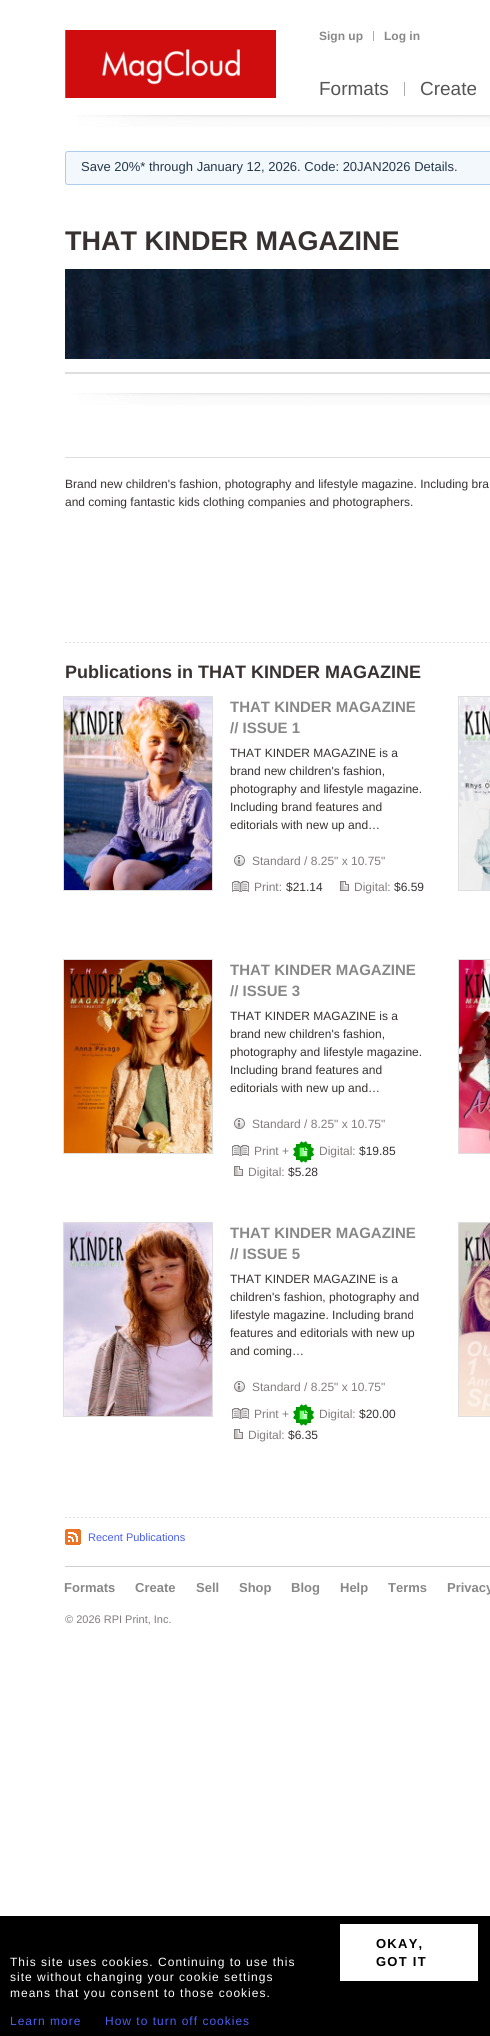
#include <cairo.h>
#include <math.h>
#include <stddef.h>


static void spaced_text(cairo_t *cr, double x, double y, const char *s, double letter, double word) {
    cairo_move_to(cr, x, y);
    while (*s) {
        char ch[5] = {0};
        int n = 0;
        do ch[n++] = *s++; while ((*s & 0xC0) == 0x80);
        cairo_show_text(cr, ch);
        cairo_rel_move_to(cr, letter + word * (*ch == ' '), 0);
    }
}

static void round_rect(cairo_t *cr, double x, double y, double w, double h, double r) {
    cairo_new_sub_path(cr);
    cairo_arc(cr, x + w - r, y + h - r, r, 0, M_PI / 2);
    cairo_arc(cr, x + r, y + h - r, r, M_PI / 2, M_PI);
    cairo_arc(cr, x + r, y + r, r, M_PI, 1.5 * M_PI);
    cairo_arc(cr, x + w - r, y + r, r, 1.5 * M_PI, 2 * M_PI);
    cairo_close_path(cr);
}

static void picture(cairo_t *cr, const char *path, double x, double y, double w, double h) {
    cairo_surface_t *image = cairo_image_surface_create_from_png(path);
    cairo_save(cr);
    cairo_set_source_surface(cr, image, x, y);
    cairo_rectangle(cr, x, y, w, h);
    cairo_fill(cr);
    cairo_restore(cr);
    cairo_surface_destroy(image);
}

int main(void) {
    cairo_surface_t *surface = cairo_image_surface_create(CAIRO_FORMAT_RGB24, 490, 2036);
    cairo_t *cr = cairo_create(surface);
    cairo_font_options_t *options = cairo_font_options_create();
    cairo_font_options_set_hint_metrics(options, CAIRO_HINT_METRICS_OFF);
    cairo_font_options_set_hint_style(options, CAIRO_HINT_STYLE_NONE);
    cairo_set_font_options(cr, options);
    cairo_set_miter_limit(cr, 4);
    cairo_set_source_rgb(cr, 1, 1, 1);
    cairo_paint(cr);
    cairo_set_source_rgb(cr, 0.816, 0.051, 0.055);
    cairo_rectangle(cr, 240, 30, 36, 68);
    cairo_fill(cr);
    picture(cr, "img1.png", 65, 30, 175, 68);
    cairo_select_font_face(cr, "Liberation Sans", CAIRO_FONT_SLANT_NORMAL, CAIRO_FONT_WEIGHT_BOLD);
    cairo_set_font_size(cr, 12);
    cairo_set_source_rgb(cr, 0.533, 0.533, 0.533);
    cairo_move_to(cr, 319, 40);
    cairo_show_text(cr, "Sign up");
    cairo_set_source_rgb(cr, 0.678, 0.678, 0.678);
    cairo_rectangle(cr, 373, 31, 1, 10);
    cairo_fill(cr);
    cairo_set_source_rgb(cr, 0.533, 0.533, 0.533);
    cairo_move_to(cr, 384, 40);
    cairo_show_text(cr, "Log in");
    cairo_select_font_face(cr, "Liberation Sans", CAIRO_FONT_SLANT_NORMAL, CAIRO_FONT_WEIGHT_NORMAL);
    cairo_set_font_size(cr, 19);
    cairo_set_source_rgb(cr, 0.333, 0.333, 0.333);
    cairo_move_to(cr, 319, 95);
    cairo_show_text(cr, "Formats");
    cairo_set_source_rgb(cr, 0.678, 0.678, 0.678);
    cairo_rectangle(cr, 404, 82, 1, 14);
    cairo_fill(cr);
    cairo_set_source_rgb(cr, 0.333, 0.333, 0.333);
    cairo_move_to(cr, 420, 95);
    cairo_show_text(cr, "Create");
    picture(cr, "img2.png", 77, 115, 413, 12);
    cairo_set_source_rgb(cr, 0.949, 0.969, 0.988);
    round_rect(cr, 65.5, 151.5, 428, 33, 2.5);
    cairo_fill_preserve(cr);
    cairo_set_source_rgb(cr, 0.667, 0.804, 0.941);
    cairo_set_line_width(cr, 1);
    cairo_stroke(cr);
    cairo_set_font_size(cr, 13);
    cairo_set_source_rgb(cr, 0.149, 0.22, 0.29);
    cairo_move_to(cr, 81, 171);
    cairo_show_text(cr, "Save 20%* through January 12, 2026. Code: 20JAN2026 Details.");
    cairo_select_font_face(cr, "Liberation Sans", CAIRO_FONT_SLANT_NORMAL, CAIRO_FONT_WEIGHT_BOLD);
    cairo_set_font_size(cr, 27);
    cairo_set_source_rgb(cr, 0.22, 0.192, 0.192);
    cairo_move_to(cr, 65, 250);
    cairo_show_text(cr, "THAT KINDER MAGAZINE");
    picture(cr, "img3.png", 65, 269, 425, 90);
    cairo_set_source_rgb(cr, 0.871, 0.871, 0.871);
    cairo_rectangle(cr, 65, 372, 425, 2);
    cairo_fill(cr);
    picture(cr, "img2.png", 77, 393, 413, 12);
    cairo_rectangle(cr, 65, 457, 425, 1);
    cairo_fill(cr);
    cairo_select_font_face(cr, "Liberation Sans", CAIRO_FONT_SLANT_NORMAL, CAIRO_FONT_WEIGHT_NORMAL);
    cairo_set_font_size(cr, 12);
    cairo_set_source_rgb(cr, 0.22, 0.192, 0.192);
    cairo_move_to(cr, 65, 488);
    cairo_show_text(cr, "Brand new children's fashion, photography and lifestyle magazine. Including bra");
    cairo_move_to(cr, 65, 506);
    cairo_show_text(cr, "and coming fantastic kids clothing companies and photographers.");
    picture(cr, "img4.png", 65, 642, 425, 1);
    cairo_select_font_face(cr, "Liberation Sans", CAIRO_FONT_SLANT_NORMAL, CAIRO_FONT_WEIGHT_BOLD);
    cairo_set_font_size(cr, 18);
    cairo_move_to(cr, 65, 678);
    cairo_show_text(cr, "Publications in THAT KINDER MAGAZINE");
    cairo_rectangle(cr, 63.5, 696.5, 149, 194);
    cairo_set_source_rgb(cr, 0.871, 0.871, 0.871);
    cairo_stroke(cr);
    picture(cr, "img5.png", 64, 697, 148, 193);
    cairo_set_font_size(cr, 15);
    cairo_set_source_rgb(cr, 0.533, 0.533, 0.533);
    cairo_move_to(cr, 230, 712);
    cairo_show_text(cr, "THAT KINDER MAGAZINE");
    cairo_move_to(cr, 230, 733);
    cairo_show_text(cr, "// ISSUE 1");
    cairo_select_font_face(cr, "Liberation Sans", CAIRO_FONT_SLANT_NORMAL, CAIRO_FONT_WEIGHT_NORMAL);
    cairo_set_font_size(cr, 12);
    cairo_set_source_rgb(cr, 0.22, 0.192, 0.192);
    cairo_move_to(cr, 230, 757);
    cairo_show_text(cr, "THAT KINDER MAGAZINE is a");
    cairo_move_to(cr, 230, 775);
    cairo_show_text(cr, "brand new children's fashion,");
    cairo_move_to(cr, 230, 793);
    cairo_show_text(cr, "photography and lifestyle magazine.");
    cairo_move_to(cr, 230, 811);
    cairo_show_text(cr, "Including brand features and");
    cairo_move_to(cr, 230, 829);
    cairo_show_text(cr, "editorials with new up and…");
    picture(cr, "img6.png", 234, 855, 11, 11);
    cairo_set_source_rgb(cr, 0.514, 0.486, 0.486);
    cairo_move_to(cr, 252, 865);
    cairo_show_text(cr, "Standard / 8.25\" x 10.75\"");
    picture(cr, "img7.png", 232, 881, 17, 11);
    cairo_move_to(cr, 254, 891);
    cairo_show_text(cr, "Print:");
    cairo_set_source_rgb(cr, 0.22, 0.192, 0.192);
    cairo_move_to(cr, 286, 891);
    cairo_show_text(cr, "$21.14");
    picture(cr, "img8.png", 340, 881, 9, 10);
    cairo_set_source_rgb(cr, 0.514, 0.486, 0.486);
    cairo_move_to(cr, 354, 891);
    cairo_show_text(cr, "Digital:");
    cairo_set_source_rgb(cr, 0.22, 0.192, 0.192);
    cairo_move_to(cr, 394, 891);
    cairo_show_text(cr, "$6.59");
    cairo_rectangle(cr, 458.5, 696.5, 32, 194);
    cairo_set_source_rgb(cr, 0.871, 0.871, 0.871);
    cairo_stroke(cr);
    picture(cr, "img9.png", 459, 697, 31, 193);
    cairo_rectangle(cr, 63.5, 959.5, 149, 194);
    cairo_stroke(cr);
    picture(cr, "img10.png", 64, 960, 148, 193);
    cairo_select_font_face(cr, "Liberation Sans", CAIRO_FONT_SLANT_NORMAL, CAIRO_FONT_WEIGHT_BOLD);
    cairo_set_font_size(cr, 15);
    cairo_set_source_rgb(cr, 0.533, 0.533, 0.533);
    cairo_move_to(cr, 230, 975);
    cairo_show_text(cr, "THAT KINDER MAGAZINE");
    cairo_move_to(cr, 230, 996);
    cairo_show_text(cr, "// ISSUE 3");
    cairo_select_font_face(cr, "Liberation Sans", CAIRO_FONT_SLANT_NORMAL, CAIRO_FONT_WEIGHT_NORMAL);
    cairo_set_font_size(cr, 12);
    cairo_set_source_rgb(cr, 0.22, 0.192, 0.192);
    cairo_move_to(cr, 230, 1020);
    cairo_show_text(cr, "THAT KINDER MAGAZINE is a");
    cairo_move_to(cr, 230, 1038);
    cairo_show_text(cr, "brand new children's fashion,");
    cairo_move_to(cr, 230, 1056);
    cairo_show_text(cr, "photography and lifestyle magazine.");
    cairo_move_to(cr, 230, 1074);
    cairo_show_text(cr, "Including brand features and");
    cairo_move_to(cr, 230, 1092);
    cairo_show_text(cr, "editorials with new up and…");
    picture(cr, "img6.png", 234, 1118, 11, 11);
    cairo_set_source_rgb(cr, 0.514, 0.486, 0.486);
    cairo_move_to(cr, 252, 1128);
    cairo_show_text(cr, "Standard / 8.25\" x 10.75\"");
    picture(cr, "img7.png", 232, 1145, 17, 11);
    cairo_move_to(cr, 254, 1155);
    cairo_show_text(cr, "Print +");
    picture(cr, "img11.png", 293, 1141, 21, 22);
    cairo_move_to(cr, 319, 1155);
    cairo_show_text(cr, "Digital:");
    cairo_set_source_rgb(cr, 0.22, 0.192, 0.192);
    cairo_move_to(cr, 359, 1155);
    cairo_show_text(cr, "$19.85");
    picture(cr, "img8.png", 234, 1166, 9, 10);
    cairo_set_source_rgb(cr, 0.514, 0.486, 0.486);
    cairo_move_to(cr, 248, 1176);
    cairo_show_text(cr, "Digital:");
    cairo_set_source_rgb(cr, 0.22, 0.192, 0.192);
    cairo_move_to(cr, 288, 1176);
    cairo_show_text(cr, "$5.28");
    cairo_rectangle(cr, 458.5, 959.5, 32, 194);
    cairo_set_source_rgb(cr, 0.871, 0.871, 0.871);
    cairo_stroke(cr);
    picture(cr, "img12.png", 459, 960, 31, 193);
    cairo_rectangle(cr, 63.5, 1222.5, 149, 194);
    cairo_stroke(cr);
    picture(cr, "img13.png", 64, 1223, 148, 193);
    cairo_select_font_face(cr, "Liberation Sans", CAIRO_FONT_SLANT_NORMAL, CAIRO_FONT_WEIGHT_BOLD);
    cairo_set_font_size(cr, 15);
    cairo_set_source_rgb(cr, 0.533, 0.533, 0.533);
    cairo_move_to(cr, 230, 1238);
    cairo_show_text(cr, "THAT KINDER MAGAZINE");
    cairo_move_to(cr, 230, 1259);
    cairo_show_text(cr, "// ISSUE 5");
    cairo_select_font_face(cr, "Liberation Sans", CAIRO_FONT_SLANT_NORMAL, CAIRO_FONT_WEIGHT_NORMAL);
    cairo_set_font_size(cr, 12);
    cairo_set_source_rgb(cr, 0.22, 0.192, 0.192);
    cairo_move_to(cr, 230, 1283);
    cairo_show_text(cr, "THAT KINDER MAGAZINE is a");
    cairo_move_to(cr, 230, 1301);
    cairo_show_text(cr, "children's fashion, photography and");
    cairo_move_to(cr, 230, 1319);
    cairo_show_text(cr, "lifestyle magazine. Including brand");
    cairo_move_to(cr, 230, 1337);
    cairo_show_text(cr, "features and editorials with new up");
    cairo_move_to(cr, 230, 1355);
    cairo_show_text(cr, "and coming…");
    picture(cr, "img6.png", 234, 1381, 11, 11);
    cairo_set_source_rgb(cr, 0.514, 0.486, 0.486);
    cairo_move_to(cr, 252, 1391);
    cairo_show_text(cr, "Standard / 8.25\" x 10.75\"");
    picture(cr, "img7.png", 232, 1408, 17, 11);
    cairo_move_to(cr, 254, 1418);
    cairo_show_text(cr, "Print +");
    picture(cr, "img11.png", 293, 1404, 21, 22);
    cairo_move_to(cr, 319, 1418);
    cairo_show_text(cr, "Digital:");
    cairo_set_source_rgb(cr, 0.22, 0.192, 0.192);
    cairo_move_to(cr, 359, 1418);
    cairo_show_text(cr, "$20.00");
    picture(cr, "img8.png", 234, 1429, 9, 10);
    cairo_set_source_rgb(cr, 0.514, 0.486, 0.486);
    cairo_move_to(cr, 248, 1439);
    cairo_show_text(cr, "Digital:");
    cairo_set_source_rgb(cr, 0.22, 0.192, 0.192);
    cairo_move_to(cr, 288, 1439);
    cairo_show_text(cr, "$6.35");
    cairo_rectangle(cr, 458.5, 1222.5, 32, 194);
    cairo_set_source_rgb(cr, 0.871, 0.871, 0.871);
    cairo_stroke(cr);
    picture(cr, "img14.png", 459, 1223, 31, 193);
    picture(cr, "img4.png", 65, 1517, 425, 1);
    picture(cr, "img15.png", 65, 1529, 16, 16);
    cairo_set_font_size(cr, 11);
    cairo_set_source_rgb(cr, 0.282, 0.373, 0.941);
    cairo_move_to(cr, 88, 1541);
    cairo_show_text(cr, "Recent Publications");
    cairo_set_source_rgb(cr, 0.82, 0.82, 0.82);
    cairo_rectangle(cr, 65, 1566, 425, 1);
    cairo_fill(cr);
    cairo_select_font_face(cr, "Liberation Sans", CAIRO_FONT_SLANT_NORMAL, CAIRO_FONT_WEIGHT_BOLD);
    cairo_set_font_size(cr, 13);
    cairo_set_source_rgb(cr, 0.533, 0.533, 0.533);
    cairo_move_to(cr, 64, 1592);
    cairo_show_text(cr, "Formats");
    cairo_move_to(cr, 135, 1592);
    cairo_show_text(cr, "Create");
    cairo_move_to(cr, 196, 1592);
    cairo_show_text(cr, "Sell");
    cairo_move_to(cr, 239, 1592);
    cairo_show_text(cr, "Shop");
    cairo_move_to(cr, 291, 1592);
    cairo_show_text(cr, "Blog");
    cairo_move_to(cr, 340, 1592);
    cairo_show_text(cr, "Help");
    cairo_move_to(cr, 388, 1592);
    cairo_show_text(cr, "Terms");
    cairo_move_to(cr, 447, 1592);
    cairo_show_text(cr, "Privacy");
    cairo_select_font_face(cr, "Liberation Sans", CAIRO_FONT_SLANT_NORMAL, CAIRO_FONT_WEIGHT_NORMAL);
    cairo_set_font_size(cr, 11);
    cairo_set_source_rgb(cr, 0.514, 0.486, 0.486);
    cairo_move_to(cr, 65, 1623);
    cairo_show_text(cr, "© 2026 RPI Print, Inc.");
    cairo_set_source_rgb(cr, 0, 0, 0);
    cairo_rectangle(cr, 0, 1916, 490, 120);
    cairo_fill(cr);
    cairo_set_source_rgb(cr, 1, 1, 1);
    cairo_rectangle(cr, 340, 1924, 138, 57);
    cairo_fill(cr);
    cairo_select_font_face(cr, "Liberation Sans", CAIRO_FONT_SLANT_NORMAL, CAIRO_FONT_WEIGHT_BOLD);
    cairo_set_font_size(cr, 13);
    cairo_set_source_rgb(cr, 0, 0, 0);
    spaced_text(cr, 376, 1948, "OKAY,", 1.25, 0);
    spaced_text(cr, 376, 1966, "GOT IT", 1.25, 0);
    cairo_select_font_face(cr, "Liberation Sans", CAIRO_FONT_SLANT_NORMAL, CAIRO_FONT_WEIGHT_NORMAL);
    cairo_set_font_size(cr, 12);
    cairo_set_source_rgb(cr, 1, 1, 1);
    spaced_text(cr, 10, 1966, "This site uses cookies. Continuing to use this", 1, 0);
    spaced_text(cr, 10, 1981, "site without changing your cookie settings", 1, 0);
    spaced_text(cr, 10, 1997, "means that you consent to those cookies.", 1, 0);
    cairo_set_source_rgb(cr, 0.282, 0.373, 0.941);
    spaced_text(cr, 10, 2025, "Learn more", 1, 0);
    spaced_text(cr, 105, 2025, "How to turn off cookies", 1, 0);
    cairo_surface_write_to_png(surface, "page.png");
    cairo_font_options_destroy(options);
    cairo_destroy(cr);
    cairo_surface_destroy(surface);
    return 0;
}
